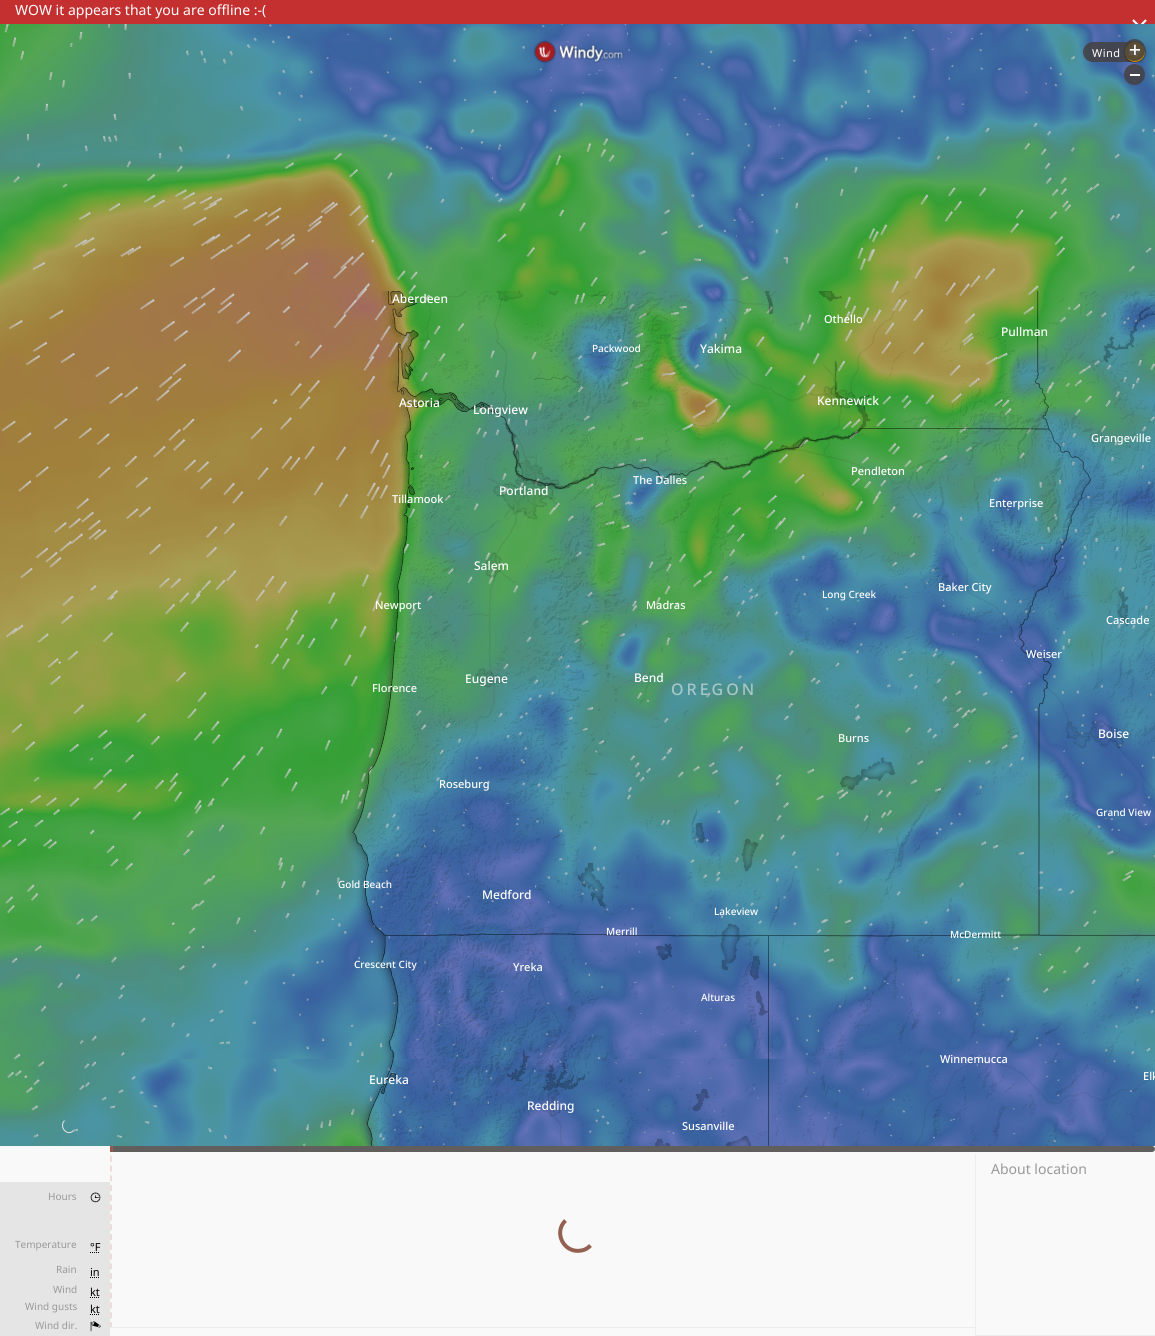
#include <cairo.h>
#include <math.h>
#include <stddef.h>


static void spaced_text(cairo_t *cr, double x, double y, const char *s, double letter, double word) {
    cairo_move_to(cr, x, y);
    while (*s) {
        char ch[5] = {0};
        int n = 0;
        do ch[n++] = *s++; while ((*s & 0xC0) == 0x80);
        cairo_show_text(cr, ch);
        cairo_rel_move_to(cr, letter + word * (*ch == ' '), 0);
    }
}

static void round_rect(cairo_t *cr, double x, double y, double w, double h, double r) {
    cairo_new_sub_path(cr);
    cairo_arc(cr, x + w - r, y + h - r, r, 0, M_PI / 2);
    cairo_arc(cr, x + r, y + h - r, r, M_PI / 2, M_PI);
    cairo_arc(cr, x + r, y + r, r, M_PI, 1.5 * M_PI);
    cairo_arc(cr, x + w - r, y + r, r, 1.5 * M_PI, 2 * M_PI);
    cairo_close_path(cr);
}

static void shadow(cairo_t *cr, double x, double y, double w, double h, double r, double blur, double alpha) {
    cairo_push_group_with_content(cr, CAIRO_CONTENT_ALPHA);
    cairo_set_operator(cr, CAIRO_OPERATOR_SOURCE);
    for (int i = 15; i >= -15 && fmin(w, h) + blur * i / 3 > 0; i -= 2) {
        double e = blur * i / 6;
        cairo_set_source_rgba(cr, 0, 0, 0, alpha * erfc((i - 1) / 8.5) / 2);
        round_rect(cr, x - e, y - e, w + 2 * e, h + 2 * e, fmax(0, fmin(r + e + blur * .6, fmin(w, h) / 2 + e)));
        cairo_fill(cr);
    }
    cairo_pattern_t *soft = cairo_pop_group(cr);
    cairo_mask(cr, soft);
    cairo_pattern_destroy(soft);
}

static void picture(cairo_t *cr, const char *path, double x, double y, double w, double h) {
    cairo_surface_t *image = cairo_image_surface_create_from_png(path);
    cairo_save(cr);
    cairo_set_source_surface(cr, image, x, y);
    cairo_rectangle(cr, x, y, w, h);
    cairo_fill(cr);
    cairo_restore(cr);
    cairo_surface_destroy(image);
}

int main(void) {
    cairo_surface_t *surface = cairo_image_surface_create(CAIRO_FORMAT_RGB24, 1155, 1336);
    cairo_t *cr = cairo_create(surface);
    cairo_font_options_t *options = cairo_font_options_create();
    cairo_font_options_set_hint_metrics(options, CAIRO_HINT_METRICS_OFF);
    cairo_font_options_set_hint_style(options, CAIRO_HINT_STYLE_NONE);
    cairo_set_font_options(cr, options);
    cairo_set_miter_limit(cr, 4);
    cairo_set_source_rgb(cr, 1, 1, 1);
    cairo_paint(cr);
    cairo_set_source_rgb(cr, 0.769, 0.184, 0.184);
    cairo_rectangle(cr, 0, 0, 1155, 24);
    cairo_fill(cr);
    cairo_select_font_face(cr, "Noto Sans", CAIRO_FONT_SLANT_NORMAL, CAIRO_FONT_WEIGHT_NORMAL);
    cairo_set_font_size(cr, 14);
    cairo_set_source_rgb(cr, 1, 1, 1);
    cairo_move_to(cr, 15, 15);
    cairo_show_text(cr, "WOW it appears that you are offline :-(");
    picture(cr, "img1.png", 1132, 19, 15, 5);
    picture(cr, "img13.png", 427, 35, 256, 256);
    picture(cr, "img6.png", 0, 24, 171, 11);
    picture(cr, "img7.png", 171, 24, 256, 11);
    picture(cr, "img8.png", 427, 24, 256, 11);
    picture(cr, "img9.png", 683, 24, 256, 11);
    picture(cr, "img10.png", 939, 24, 216, 11);
    picture(cr, "img11.png", 0, 35, 171, 256);
    picture(cr, "img12.png", 171, 35, 256, 256);
    picture(cr, "img14.png", 683, 35, 256, 256);
    picture(cr, "img15.png", 939, 35, 216, 256);
    picture(cr, "img16.png", 0, 291, 171, 256);
    picture(cr, "img17.png", 171, 291, 256, 256);
    picture(cr, "img18.png", 427, 291, 256, 256);
    picture(cr, "img19.png", 683, 291, 256, 256);
    picture(cr, "img20.png", 939, 291, 216, 256);
    picture(cr, "img21.png", 0, 547, 171, 256);
    picture(cr, "img22.png", 171, 547, 256, 256);
    picture(cr, "img23.png", 427, 547, 256, 256);
    picture(cr, "img24.png", 683, 547, 256, 256);
    picture(cr, "img25.png", 939, 547, 216, 256);
    picture(cr, "img26.png", 0, 803, 171, 256);
    picture(cr, "img27.png", 171, 803, 256, 256);
    picture(cr, "img28.png", 427, 803, 256, 256);
    picture(cr, "img29.png", 683, 803, 256, 256);
    picture(cr, "img30.png", 939, 803, 216, 256);
    picture(cr, "img31.png", 0, 1059, 171, 87);
    picture(cr, "img32.png", 171, 1059, 256, 87);
    picture(cr, "img33.png", 427, 1059, 256, 87);
    picture(cr, "img34.png", 683, 1059, 256, 87);
    picture(cr, "img35.png", 939, 1059, 216, 87);
    picture(cr, "img36.png", 0, 24, 1155, 1122);
    picture(cr, "img2.png", 533, 40, 24, 24);
    picture(cr, "img3.png", 558, 44, 66, 19);
    cairo_set_source_rgba(cr, 0.267, 0.255, 0.255, 0.84);
    round_rect(cr, 1083, 42, 62, 20, 10);
    cairo_fill(cr);
    cairo_set_font_size(cr, 11);
    cairo_set_source_rgb(cr, 1, 1, 1);
    spaced_text(cr, 1092, 57, "Wind", 0.5, 0);
    cairo_set_source_rgb(cr, 0, 0, 0);
    shadow(cr, 1125, 42, 20, 20, 10, 1, 1);
    cairo_set_source_rgb(cr, 0.831, 0.584, 0);
    cairo_arc(cr, 1135, 52, 10, 0, 2 * M_PI);
    cairo_fill(cr);
    picture(cr, "img4.png", 1129, 50, 11, 7);
    cairo_set_source_rgba(cr, 0.267, 0.255, 0.255, 0.84);
    round_rect(cr, 1124, 39, 21, 22, 10.5);
    cairo_fill(cr);
    picture(cr, "img5.png", 1129, 44, 12, 11);
    cairo_arc(cr, 1134.5, 74.5, 10.5, 0, 2 * M_PI);
    cairo_fill(cr);
    cairo_set_source_rgb(cr, 1, 1, 1);
    cairo_rectangle(cr, 1130, 74, 10, 2);
    cairo_fill(cr);
    picture(cr, "img37.png", 381, 291, 46, 256);
    picture(cr, "img38.png", 427, 291, 256, 256);
    picture(cr, "img39.png", 683, 291, 256, 256);
    picture(cr, "img40.png", 939, 291, 216, 256);
    picture(cr, "img41.png", 355, 547, 72, 256);
    picture(cr, "img42.png", 427, 547, 256, 256);
    picture(cr, "img43.png", 683, 547, 256, 256);
    picture(cr, "img44.png", 939, 547, 216, 256);
    picture(cr, "img45.png", 346, 803, 81, 256);
    picture(cr, "img46.png", 427, 803, 256, 256);
    picture(cr, "img47.png", 683, 803, 256, 256);
    picture(cr, "img48.png", 939, 803, 216, 256);
    picture(cr, "img49.png", 359, 1059, 68, 87);
    picture(cr, "img50.png", 427, 1059, 256, 87);
    picture(cr, "img51.png", 683, 1059, 256, 87);
    picture(cr, "img52.png", 939, 1059, 216, 87);
    cairo_select_font_face(cr, "Noto Sans Medium", CAIRO_FONT_SLANT_NORMAL, CAIRO_FONT_WEIGHT_NORMAL);
    cairo_set_font_size(cr, 12);
    cairo_move_to(cr, 392, 303);
    cairo_show_text(cr, "Aberdeen");
    cairo_move_to(cr, 399, 407);
    cairo_show_text(cr, "Astoria");
    cairo_set_font_size(cr, 11);
    cairo_move_to(cr, 392, 503);
    cairo_show_text(cr, "Tillamook");
    cairo_set_font_size(cr, 10);
    cairo_move_to(cr, 592, 352);
    cairo_show_text(cr, "Packwood");
    cairo_set_font_size(cr, 12);
    cairo_move_to(cr, 473, 414);
    cairo_show_text(cr, "Longview");
    cairo_set_font_size(cr, 11);
    cairo_move_to(cr, 633, 484);
    cairo_show_text(cr, "The Dalles");
    cairo_set_font_size(cr, 12);
    cairo_move_to(cr, 499, 495);
    cairo_show_text(cr, "Portland");
    cairo_set_font_size(cr, 11);
    cairo_move_to(cr, 824, 323);
    cairo_show_text(cr, "Othello");
    cairo_set_font_size(cr, 12);
    cairo_move_to(cr, 700, 353);
    cairo_show_text(cr, "Yakima");
    cairo_move_to(cr, 817, 405);
    cairo_show_text(cr, "Kennewick");
    cairo_set_font_size(cr, 11);
    cairo_move_to(cr, 851, 475);
    cairo_show_text(cr, "Pendleton");
    cairo_set_font_size(cr, 12);
    cairo_move_to(cr, 1001, 336);
    cairo_show_text(cr, "Pullman");
    cairo_set_font_size(cr, 11);
    cairo_move_to(cr, 1091, 442);
    cairo_show_text(cr, "Grangeville");
    cairo_move_to(cr, 989, 507);
    cairo_show_text(cr, "Enterprise");
    cairo_move_to(cr, 375, 609);
    cairo_show_text(cr, "Newport");
    cairo_move_to(cr, 372, 692);
    cairo_show_text(cr, "Florence");
    cairo_set_font_size(cr, 12);
    cairo_move_to(cr, 474, 570);
    cairo_show_text(cr, "Salem");
    cairo_set_font_size(cr, 11);
    cairo_move_to(cr, 646, 609);
    cairo_show_text(cr, "Madras");
    cairo_set_font_size(cr, 12);
    cairo_move_to(cr, 465, 683);
    cairo_show_text(cr, "Eugene");
    cairo_move_to(cr, 634, 682);
    cairo_show_text(cr, "Bend");
    cairo_set_font_size(cr, 11);
    cairo_move_to(cr, 439, 788);
    cairo_show_text(cr, "Roseburg");
    cairo_set_font_size(cr, 10);
    cairo_move_to(cr, 822, 598);
    cairo_show_text(cr, "Long Creek");
    cairo_set_font_size(cr, 16);
    cairo_set_source_rgb(cr, 0.647, 0.784, 0.78);
    spaced_text(cr, 671, 695, "OREGON", 3, 0);
    cairo_set_font_size(cr, 11);
    cairo_set_source_rgb(cr, 1, 1, 1);
    cairo_move_to(cr, 838, 742);
    cairo_show_text(cr, "Burns");
    cairo_move_to(cr, 938, 591);
    cairo_show_text(cr, "Baker City");
    cairo_move_to(cr, 1106, 624);
    cairo_show_text(cr, "Cascade");
    cairo_move_to(cr, 1026, 658);
    cairo_show_text(cr, "Weiser");
    cairo_set_font_size(cr, 12);
    cairo_move_to(cr, 1098, 738);
    cairo_show_text(cr, "Boise");
    cairo_set_font_size(cr, 10);
    cairo_move_to(cr, 338, 888);
    cairo_show_text(cr, "Gold Beach");
    cairo_move_to(cr, 354, 968);
    cairo_show_text(cr, "Crescent City");
    cairo_set_font_size(cr, 12);
    cairo_move_to(cr, 482, 899);
    cairo_show_text(cr, "Medford");
    cairo_set_font_size(cr, 10);
    cairo_move_to(cr, 606, 935);
    cairo_show_text(cr, "Merrill");
    cairo_set_font_size(cr, 11);
    cairo_move_to(cr, 513, 971);
    cairo_show_text(cr, "Yreka");
    cairo_set_font_size(cr, 10);
    cairo_move_to(cr, 714, 915);
    cairo_show_text(cr, "Lakeview");
    cairo_move_to(cr, 701, 1001);
    cairo_show_text(cr, "Alturas");
    cairo_move_to(cr, 1096, 816);
    cairo_show_text(cr, "Grand View");
    cairo_move_to(cr, 950, 938);
    cairo_show_text(cr, "McDermitt");
    cairo_set_font_size(cr, 12);
    cairo_move_to(cr, 369, 1084);
    cairo_show_text(cr, "Eureka");
    cairo_set_font_size(cr, 11);
    cairo_move_to(cr, 940, 1063);
    cairo_show_text(cr, "Winnemucca");
    cairo_move_to(cr, 1143, 1080);
    cairo_show_text(cr, "Elk");
    cairo_set_font_size(cr, 12);
    cairo_move_to(cr, 527, 1110);
    cairo_show_text(cr, "Redding");
    cairo_set_font_size(cr, 11);
    cairo_move_to(cr, 682, 1130);
    cairo_show_text(cr, "Susanville");
    cairo_new_path(cr);
    cairo_move_to(cr, 73.5, 1130.5);
    cairo_curve_to(cr, 67.5, 1137, 58.5, 1127, 64.5, 1120.5);
    cairo_set_source_rgb(cr, 0.898, 0.898, 0.898);
    cairo_set_line_width(cr, 1);
    cairo_stroke(cr);
    cairo_set_source_rgb(cr, 0.973, 0.973, 0.973);
    cairo_rectangle(cr, 0, 1146, 1155, 190);
    cairo_fill(cr);
    cairo_set_source_rgb(cr, 0.38, 0.369, 0.369);
    round_rect(cr, 110, 1146, 1045, 6, 3);
    cairo_fill(cr);
    cairo_set_source_rgb(cr, 0.58, 0.376, 0.318);
    cairo_rectangle(cr, 110, 1146, 3, 6);
    cairo_fill(cr);
    cairo_new_path(cr);
    cairo_move_to(cr, 111, 1146);
    cairo_line_to(cr, 111, 1328);
    cairo_set_source_rgba(cr, 0.616, 0.012, 0, 0.12);
    cairo_set_line_width(cr, 2);
    cairo_set_dash(cr, (double[]){6, 3.78}, 2, 0);
    cairo_stroke(cr);
    cairo_set_source_rgb(cr, 0.929, 0.929, 0.929);
    cairo_rectangle(cr, 975, 1335, 180, 1);
    cairo_fill(cr);
    cairo_rectangle(cr, 975, 1154, 1, 182);
    cairo_fill(cr);
    cairo_rectangle(cr, 110, 1327, 866, 1);
    cairo_fill(cr);
    cairo_select_font_face(cr, "Noto Sans", CAIRO_FONT_SLANT_NORMAL, CAIRO_FONT_WEIGHT_NORMAL);
    cairo_set_font_size(cr, 14);
    cairo_set_source_rgb(cr, 0.6, 0.6, 0.6);
    cairo_move_to(cr, 991, 1174);
    cairo_show_text(cr, "About location");
    cairo_set_source_rgb(cr, 0.898, 0.898, 0.898);
    cairo_rectangle(cr, 0, 1182, 110, 154);
    cairo_fill(cr);
    cairo_set_font_size(cr, 10);
    cairo_set_source_rgb(cr, 0.6, 0.6, 0.6);
    cairo_move_to(cr, 48, 1200);
    cairo_show_text(cr, "Hours");
    picture(cr, "img53.png", 90, 1192, 11, 11);
    cairo_move_to(cr, 15, 1248);
    cairo_show_text(cr, "Temperature");
    cairo_set_font_size(cr, 11);
    cairo_set_source_rgb(cr, 0, 0, 0);
    cairo_move_to(cr, 90, 1251);
    cairo_show_text(cr, "°F");
    cairo_new_path(cr);
    cairo_move_to(cr, 90, 1252.5);
    cairo_line_to(cr, 100, 1252.5);
    cairo_set_line_width(cr, 1);
    cairo_set_dash(cr, (double[]){1, 1}, 2, 0);
    cairo_stroke(cr);
    cairo_set_font_size(cr, 10);
    cairo_set_source_rgb(cr, 0.6, 0.6, 0.6);
    cairo_move_to(cr, 56, 1273);
    cairo_show_text(cr, "Rain");
    cairo_set_font_size(cr, 11);
    cairo_set_source_rgb(cr, 0, 0, 0);
    cairo_move_to(cr, 90, 1276);
    cairo_show_text(cr, "in");
    cairo_new_path(cr);
    cairo_move_to(cr, 90, 1277.5);
    cairo_line_to(cr, 100, 1277.5);
    cairo_stroke(cr);
    cairo_set_font_size(cr, 10);
    cairo_set_source_rgb(cr, 0.6, 0.6, 0.6);
    cairo_move_to(cr, 53, 1293);
    cairo_show_text(cr, "Wind");
    cairo_set_font_size(cr, 11);
    cairo_set_source_rgb(cr, 0, 0, 0);
    cairo_move_to(cr, 90, 1296);
    cairo_show_text(cr, "kt");
    cairo_new_path(cr);
    cairo_move_to(cr, 90, 1297.5);
    cairo_line_to(cr, 100, 1297.5);
    cairo_stroke(cr);
    cairo_set_font_size(cr, 10);
    cairo_set_source_rgb(cr, 0.6, 0.6, 0.6);
    cairo_move_to(cr, 25, 1310);
    cairo_show_text(cr, "Wind gusts");
    cairo_set_font_size(cr, 11);
    cairo_set_source_rgb(cr, 0, 0, 0);
    cairo_move_to(cr, 90, 1313);
    cairo_show_text(cr, "kt");
    cairo_new_path(cr);
    cairo_move_to(cr, 90, 1314.5);
    cairo_line_to(cr, 100, 1314.5);
    cairo_stroke(cr);
    cairo_set_font_size(cr, 10);
    cairo_set_source_rgb(cr, 0.6, 0.6, 0.6);
    cairo_move_to(cr, 35, 1329);
    cairo_show_text(cr, "Wind dir.");
    picture(cr, "img54.png", 90, 1321, 11, 11);
    cairo_new_path(cr);
    cairo_move_to(cr, 590.5, 1245.5);
    cairo_curve_to(cr, 588, 1248, 585, 1250, 581.5, 1250.5);
    cairo_curve_to(cr, 564, 1254, 553, 1232.5, 565.5, 1220.5);
    cairo_set_source_rgb(cr, 0.58, 0.376, 0.318);
    cairo_set_line_width(cr, 4);
    cairo_set_dash(cr, NULL, 0, 0);
    cairo_stroke(cr);
    cairo_surface_write_to_png(surface, "page.png");
    cairo_font_options_destroy(options);
    cairo_destroy(cr);
    cairo_surface_destroy(surface);
    return 0;
}
